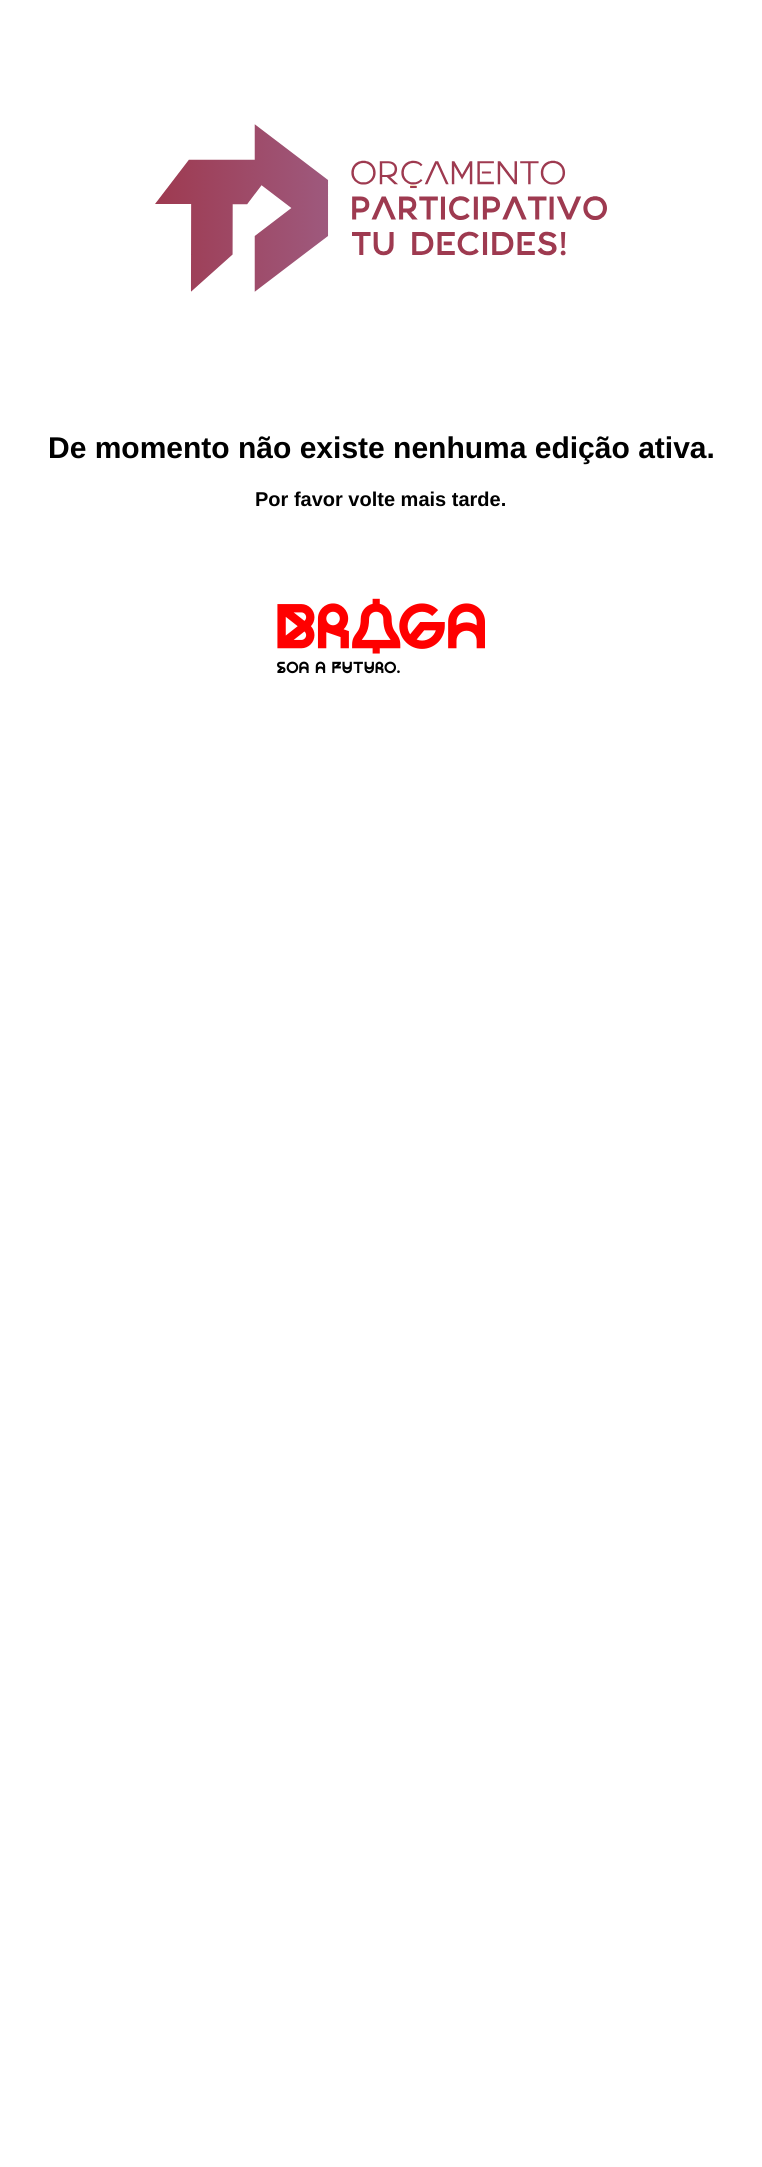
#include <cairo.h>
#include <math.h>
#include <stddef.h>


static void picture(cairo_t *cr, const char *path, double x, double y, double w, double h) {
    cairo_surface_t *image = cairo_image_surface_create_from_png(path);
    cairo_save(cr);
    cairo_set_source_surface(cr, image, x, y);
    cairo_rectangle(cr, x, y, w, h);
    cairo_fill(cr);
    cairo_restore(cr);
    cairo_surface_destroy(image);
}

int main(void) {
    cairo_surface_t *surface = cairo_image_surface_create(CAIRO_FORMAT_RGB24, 762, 2167);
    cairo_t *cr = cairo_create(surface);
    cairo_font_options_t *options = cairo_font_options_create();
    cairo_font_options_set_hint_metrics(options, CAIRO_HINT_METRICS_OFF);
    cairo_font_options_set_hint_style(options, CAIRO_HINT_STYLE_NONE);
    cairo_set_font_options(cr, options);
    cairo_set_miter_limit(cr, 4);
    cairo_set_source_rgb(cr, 1, 1, 1);
    cairo_paint(cr);
    picture(cr, "img1.png", 155, 124, 452, 168);
    cairo_select_font_face(cr, "Liberation Sans", CAIRO_FONT_SLANT_NORMAL, CAIRO_FONT_WEIGHT_BOLD);
    cairo_set_font_size(cr, 30);
    cairo_set_source_rgb(cr, 0, 0, 0);
    cairo_move_to(cr, 48, 458);
    cairo_show_text(cr, "De momento não existe nenhuma edição ativa.");
    cairo_set_font_size(cr, 20);
    cairo_move_to(cr, 255, 506);
    cairo_show_text(cr, "Por favor volte mais tarde.");
    picture(cr, "img2.png", 277, 598, 208, 76);
    cairo_surface_write_to_png(surface, "page.png");
    cairo_font_options_destroy(options);
    cairo_destroy(cr);
    cairo_surface_destroy(surface);
    return 0;
}
